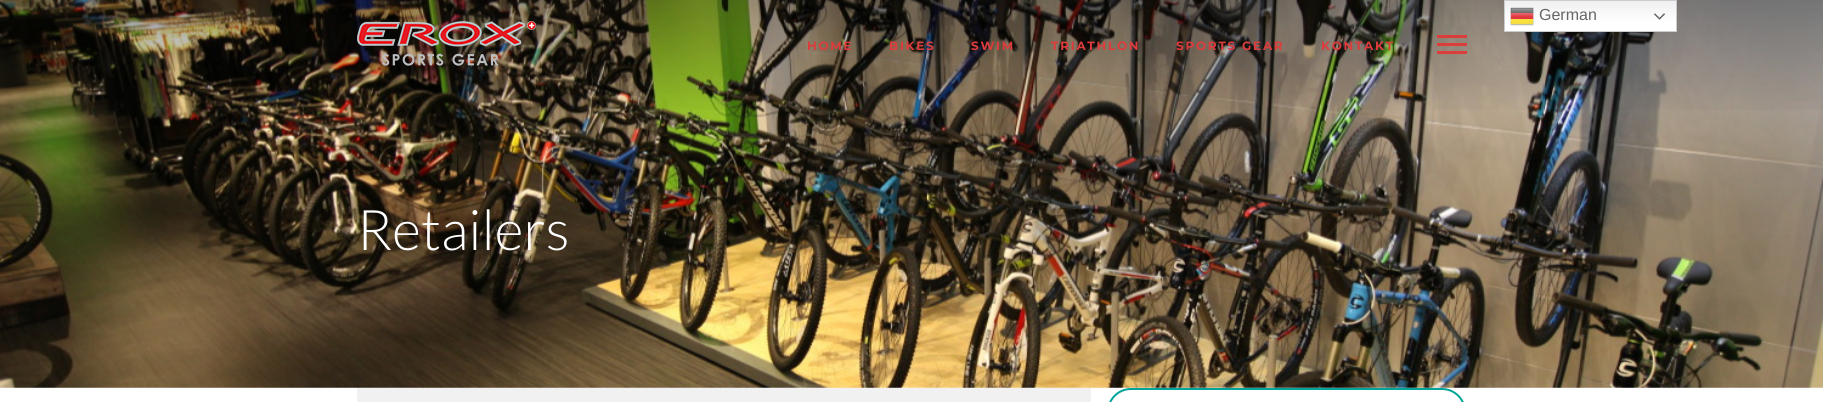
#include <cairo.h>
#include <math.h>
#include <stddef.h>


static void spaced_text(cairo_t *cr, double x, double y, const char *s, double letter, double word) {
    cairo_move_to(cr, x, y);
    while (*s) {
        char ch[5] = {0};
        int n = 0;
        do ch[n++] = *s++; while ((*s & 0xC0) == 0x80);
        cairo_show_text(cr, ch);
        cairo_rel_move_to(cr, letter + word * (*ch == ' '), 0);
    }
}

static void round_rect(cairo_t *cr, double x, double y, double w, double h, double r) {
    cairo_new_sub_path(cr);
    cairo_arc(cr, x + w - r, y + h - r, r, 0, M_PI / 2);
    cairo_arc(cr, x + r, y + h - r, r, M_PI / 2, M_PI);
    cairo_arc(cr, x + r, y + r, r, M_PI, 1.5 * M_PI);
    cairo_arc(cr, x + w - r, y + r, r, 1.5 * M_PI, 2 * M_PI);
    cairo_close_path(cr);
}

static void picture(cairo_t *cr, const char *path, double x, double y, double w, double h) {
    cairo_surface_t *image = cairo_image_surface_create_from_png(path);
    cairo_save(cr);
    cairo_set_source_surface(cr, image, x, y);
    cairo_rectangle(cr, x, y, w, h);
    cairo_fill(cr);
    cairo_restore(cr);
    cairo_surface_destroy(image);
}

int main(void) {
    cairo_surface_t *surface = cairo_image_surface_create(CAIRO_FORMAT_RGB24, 1823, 402);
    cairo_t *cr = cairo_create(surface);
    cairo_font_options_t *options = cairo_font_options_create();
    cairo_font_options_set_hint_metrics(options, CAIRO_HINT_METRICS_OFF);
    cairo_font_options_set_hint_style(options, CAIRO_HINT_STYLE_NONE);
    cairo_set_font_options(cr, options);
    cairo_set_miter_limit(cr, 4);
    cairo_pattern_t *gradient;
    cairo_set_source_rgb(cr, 1, 1, 1);
    cairo_paint(cr);
    picture(cr, "img4.png", 0, 0, 1823, 388);
    gradient = cairo_pattern_create_linear(912, 0, 912, 388);
    cairo_pattern_add_color_stop_rgba(gradient, 0, 0, 0, 0, 0.4);
    cairo_pattern_add_color_stop_rgba(gradient, 0.3, 0, 0, 0, 0);
    cairo_set_source(cr, gradient);
    cairo_pattern_destroy(gradient);
    cairo_rectangle(cr, 0, 0, 1823, 110);
    cairo_fill(cr);
    gradient = cairo_pattern_create_linear(1591, 0, 1591, 32);
    cairo_pattern_add_color_stop_rgba(gradient, 0, 0.937, 0.937, 0.937, 1);
    cairo_pattern_add_color_stop_rgba(gradient, 0.7, 1, 1, 1, 1);
    cairo_set_source(cr, gradient);
    cairo_pattern_destroy(gradient);
    cairo_rectangle(cr, 1505, 1, 171, 30);
    cairo_fill(cr);
    cairo_rectangle(cr, 1504.5, 0.5, 172, 31);
    cairo_set_source_rgb(cr, 0.8, 0.8, 0.8);
    cairo_set_line_width(cr, 1);
    cairo_stroke(cr);
    picture(cr, "img1.png", 1510, 7, 24, 19);
    cairo_select_font_face(cr, "Liberation Sans", CAIRO_FONT_SLANT_NORMAL, CAIRO_FONT_WEIGHT_NORMAL);
    cairo_set_font_size(cr, 16);
    cairo_set_source_rgb(cr, 0.4, 0.4, 0.4);
    cairo_move_to(cr, 1539, 20);
    cairo_show_text(cr, "German");
    picture(cr, "img2.png", 1654, 13, 11, 7);
    picture(cr, "img3.png", 357, 21, 179, 45);
    cairo_select_font_face(cr, "Montserrat Thin", CAIRO_FONT_SLANT_NORMAL, CAIRO_FONT_WEIGHT_NORMAL);
    cairo_set_font_size(cr, 12);
    cairo_set_source_rgb(cr, 0.867, 0.235, 0.235);
    spaced_text(cr, 807, 50, "HOME", 1.75, 0);
    spaced_text(cr, 889, 50, "BIKES", 1.75, 0);
    spaced_text(cr, 971, 50, "SWIM", 1.75, 0);
    spaced_text(cr, 1051, 50, "TRIATHLON", 1.75, 0);
    spaced_text(cr, 1176, 50, "SPORTS GEAR", 1.75, 0);
    spaced_text(cr, 1321, 50, "KONTAKT", 1.75, 0);
    cairo_rectangle(cr, 1437, 43, 30, 3);
    cairo_fill(cr);
    cairo_rectangle(cr, 1437, 35, 30, 3);
    cairo_fill(cr);
    cairo_rectangle(cr, 1437, 51, 30, 3);
    cairo_fill(cr);
    cairo_select_font_face(cr, "Lato Light", CAIRO_FONT_SLANT_NORMAL, CAIRO_FONT_WEIGHT_NORMAL);
    cairo_set_font_size(cr, 56);
    cairo_set_source_rgb(cr, 1, 1, 1);
    cairo_move_to(cr, 357, 250);
    cairo_show_text(cr, "Retailers");
    cairo_set_source_rgb(cr, 0.945, 0.945, 0.945);
    cairo_rectangle(cr, 357, 388, 734, 14);
    cairo_fill(cr);
    round_rect(cr, 1108, 389, 357, 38, 23);
    cairo_set_source_rgb(cr, 0, 0.643, 0.596);
    cairo_set_line_width(cr, 2);
    cairo_stroke(cr);
    cairo_surface_write_to_png(surface, "page.png");
    cairo_font_options_destroy(options);
    cairo_destroy(cr);
    cairo_surface_destroy(surface);
    return 0;
}
